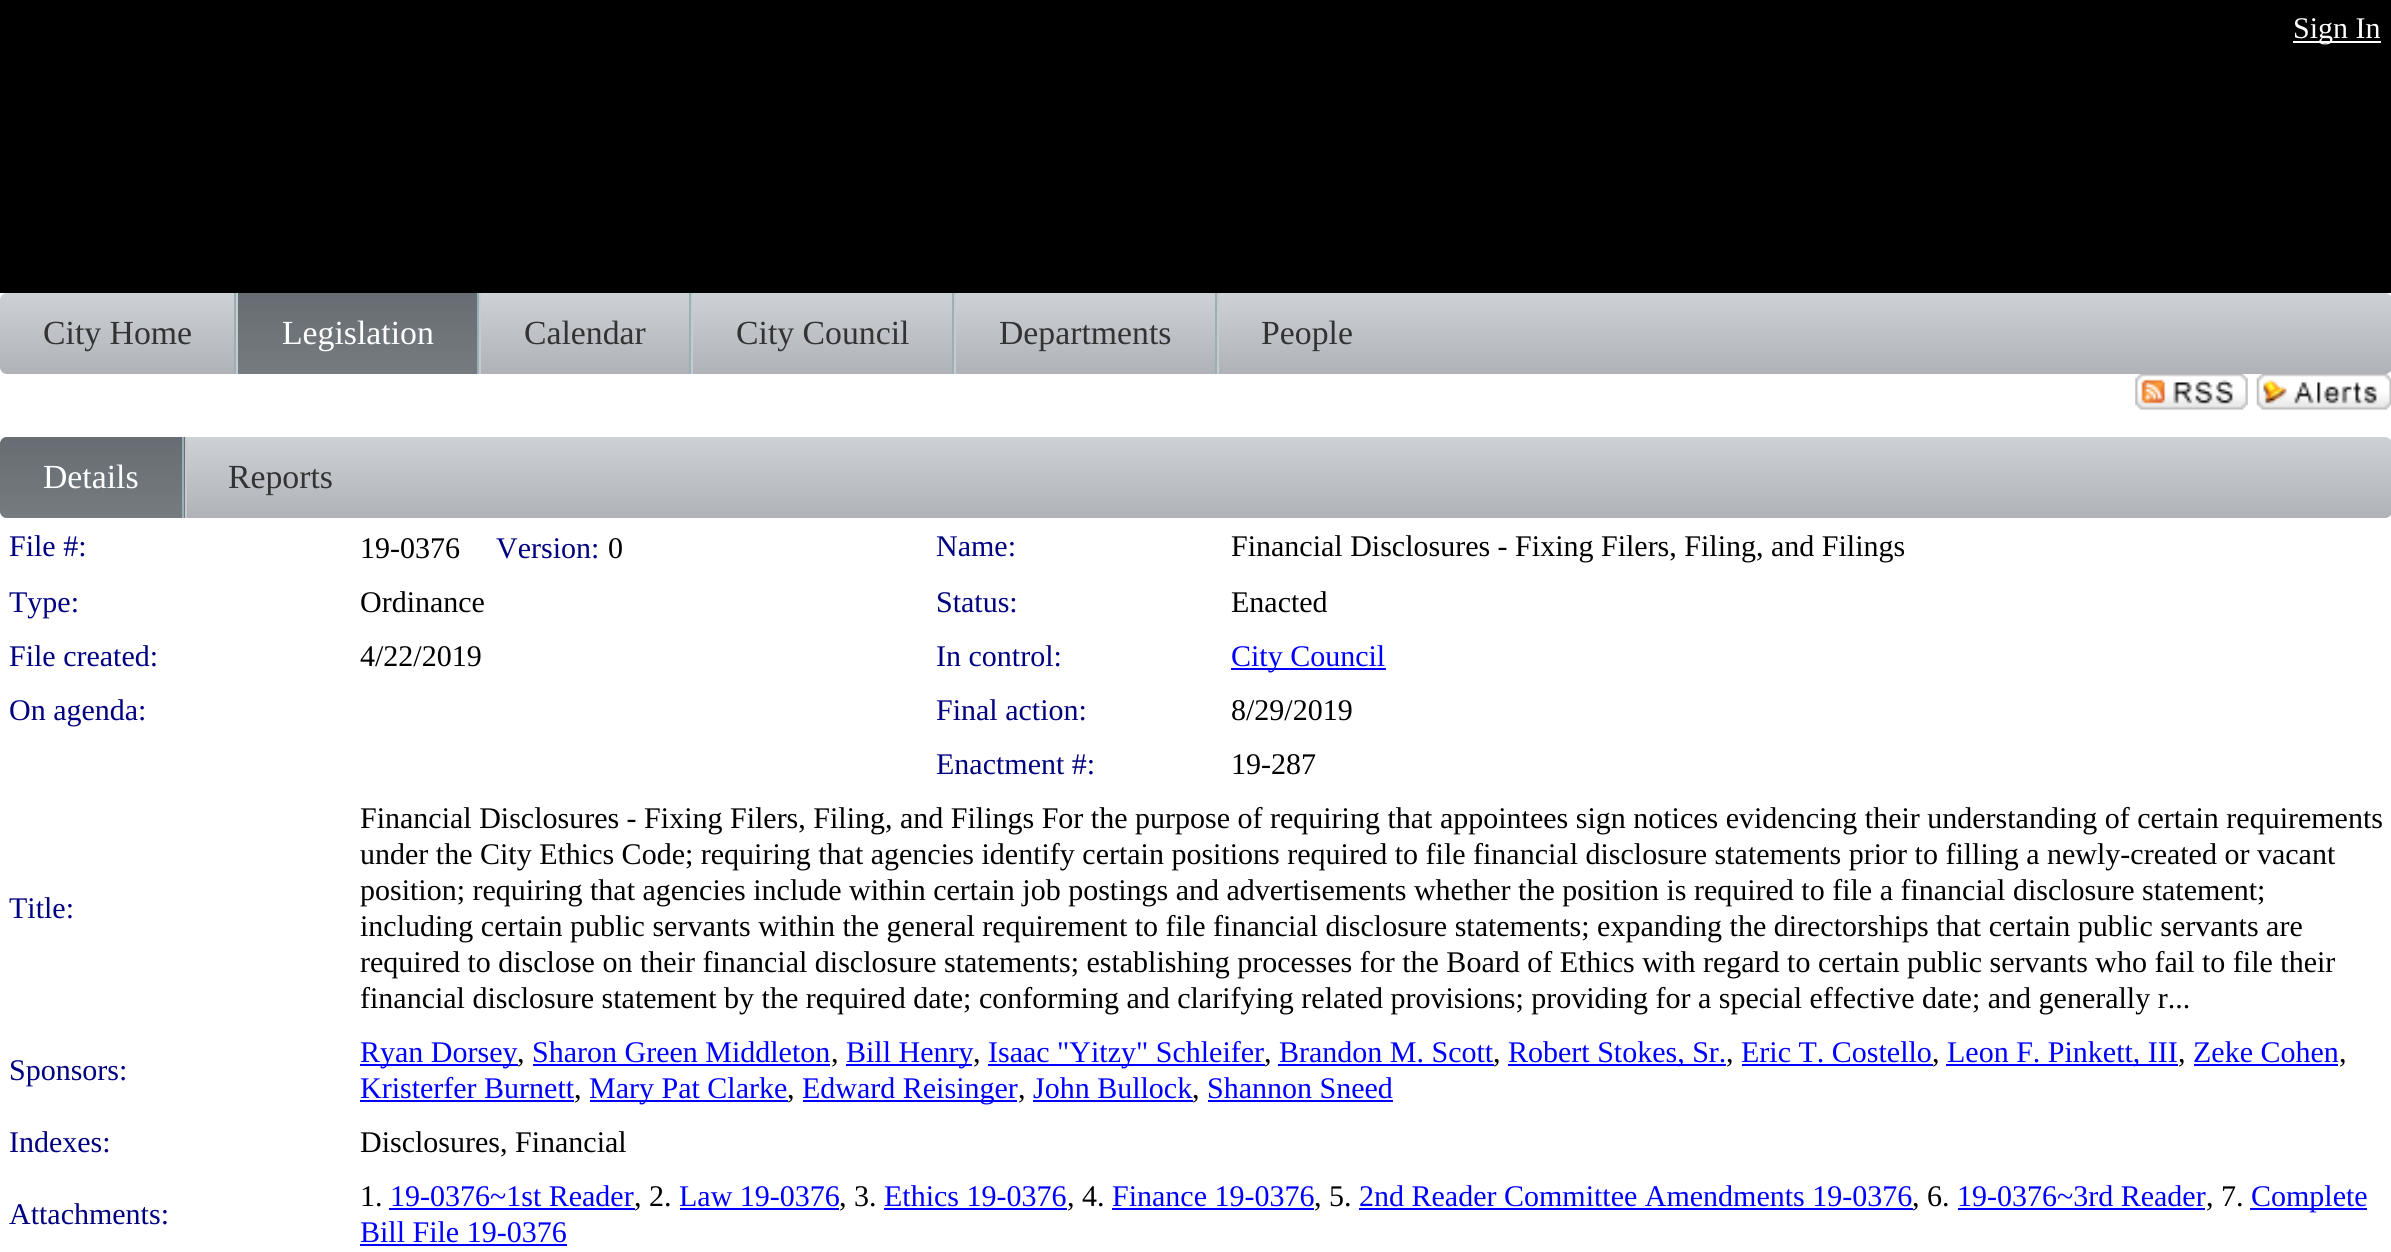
#include <cairo.h>
#include <math.h>
#include <stddef.h>


static void round_rect(cairo_t *cr, double x, double y, double w, double h, double r) {
    cairo_new_sub_path(cr);
    cairo_arc(cr, x + w - r, y + h - r, r, 0, M_PI / 2);
    cairo_arc(cr, x + r, y + h - r, r, M_PI / 2, M_PI);
    cairo_arc(cr, x + r, y + r, r, M_PI, 1.5 * M_PI);
    cairo_arc(cr, x + w - r, y + r, r, 1.5 * M_PI, 2 * M_PI);
    cairo_close_path(cr);
}

static void picture(cairo_t *cr, const char *path, double x, double y, double w, double h) {
    cairo_surface_t *image = cairo_image_surface_create_from_png(path);
    cairo_save(cr);
    cairo_set_source_surface(cr, image, x, y);
    cairo_rectangle(cr, x, y, w, h);
    cairo_fill(cr);
    cairo_restore(cr);
    cairo_surface_destroy(image);
}

int main(void) {
    cairo_surface_t *surface = cairo_image_surface_create(CAIRO_FORMAT_RGB24, 2391, 1252);
    cairo_t *cr = cairo_create(surface);
    cairo_font_options_t *options = cairo_font_options_create();
    cairo_font_options_set_hint_metrics(options, CAIRO_HINT_METRICS_OFF);
    cairo_font_options_set_hint_style(options, CAIRO_HINT_STYLE_NONE);
    cairo_set_font_options(cr, options);
    cairo_set_miter_limit(cr, 4);
    cairo_pattern_t *gradient;
    cairo_set_source_rgb(cr, 1, 1, 1);
    cairo_paint(cr);
    cairo_set_source_rgb(cr, 0, 0, 0);
    cairo_rectangle(cr, 0, 0, 2391, 293);
    cairo_fill(cr);
    cairo_set_source_rgb(cr, 1, 1, 1);
    cairo_rectangle(cr, 2293, 41, 88, 2);
    cairo_fill(cr);
    cairo_select_font_face(cr, "Liberation Serif", CAIRO_FONT_SLANT_NORMAL, CAIRO_FONT_WEIGHT_NORMAL);
    cairo_set_font_size(cr, 30);
    cairo_move_to(cr, 2293, 38);
    cairo_show_text(cr, "Sign In");
    picture(cr, "img2.png", 2256, 373, 135, 37);
    gradient = cairo_pattern_create_linear(1196, 292, 1196, 374);
    cairo_pattern_add_color_stop_rgba(gradient, 0, 0.808, 0.824, 0.839, 1);
    cairo_pattern_add_color_stop_rgba(gradient, 1, 0.686, 0.702, 0.718, 1);
    cairo_set_source(cr, gradient);
    cairo_pattern_destroy(gradient);
    round_rect(cr, 0, 293, 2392, 81, 7);
    cairo_fill(cr);
    cairo_set_source_rgb(cr, 0.604, 0.69, 0.718);
    cairo_rectangle(cr, 234, 293, 2, 81);
    cairo_fill(cr);
    cairo_set_font_size(cr, 33.75);
    cairo_set_source_rgb(cr, 0.2, 0.2, 0.2);
    cairo_move_to(cr, 43, 344);
    cairo_show_text(cr, "City Home");
    gradient = cairo_pattern_create_linear(358, 293, 358, 374);
    cairo_pattern_add_color_stop_rgba(gradient, 0, 0.404, 0.427, 0.447, 1);
    cairo_pattern_add_color_stop_rgba(gradient, 1, 0.459, 0.482, 0.498, 1);
    cairo_set_source(cr, gradient);
    cairo_pattern_destroy(gradient);
    cairo_rectangle(cr, 238, 293, 239, 81);
    cairo_fill(cr);
    cairo_set_source_rgb(cr, 0.604, 0.69, 0.718);
    cairo_rectangle(cr, 477, 293, 2, 81);
    cairo_fill(cr);
    cairo_set_source_rgb(cr, 0.784, 0.796, 0.808);
    cairo_rectangle(cr, 236, 293, 2, 81);
    cairo_fill(cr);
    cairo_set_source_rgb(cr, 1, 1, 1);
    cairo_move_to(cr, 282, 344);
    cairo_show_text(cr, "Legislation");
    cairo_set_source_rgb(cr, 0.604, 0.69, 0.718);
    cairo_rectangle(cr, 689, 293, 2, 81);
    cairo_fill(cr);
    cairo_set_source_rgb(cr, 0.784, 0.796, 0.808);
    cairo_rectangle(cr, 479, 293, 2, 81);
    cairo_fill(cr);
    cairo_set_source_rgb(cr, 0.2, 0.2, 0.2);
    cairo_move_to(cr, 524, 344);
    cairo_show_text(cr, "Calendar");
    cairo_set_source_rgb(cr, 0.604, 0.69, 0.718);
    cairo_rectangle(cr, 952, 293, 2, 81);
    cairo_fill(cr);
    cairo_set_source_rgb(cr, 0.784, 0.796, 0.808);
    cairo_rectangle(cr, 691, 293, 2, 81);
    cairo_fill(cr);
    cairo_set_source_rgb(cr, 0.2, 0.2, 0.2);
    cairo_move_to(cr, 736, 344);
    cairo_show_text(cr, "City Council");
    cairo_set_source_rgb(cr, 0.604, 0.69, 0.718);
    cairo_rectangle(cr, 1215, 293, 2, 81);
    cairo_fill(cr);
    cairo_set_source_rgb(cr, 0.784, 0.796, 0.808);
    cairo_rectangle(cr, 954, 293, 2, 81);
    cairo_fill(cr);
    cairo_set_source_rgb(cr, 0.2, 0.2, 0.2);
    cairo_move_to(cr, 999, 344);
    cairo_show_text(cr, "Departments");
    cairo_set_source_rgb(cr, 0.784, 0.796, 0.808);
    cairo_rectangle(cr, 1217, 293, 2, 81);
    cairo_fill(cr);
    cairo_set_source_rgb(cr, 0.2, 0.2, 0.2);
    cairo_move_to(cr, 1261, 344);
    cairo_show_text(cr, "People");
    picture(cr, "img1.png", 2135, 374, 113, 36);
    gradient = cairo_pattern_create_linear(1196, 436, 1196, 518);
    cairo_pattern_add_color_stop_rgba(gradient, 0, 0.808, 0.824, 0.839, 1);
    cairo_pattern_add_color_stop_rgba(gradient, 1, 0.686, 0.702, 0.718, 1);
    cairo_set_source(cr, gradient);
    cairo_pattern_destroy(gradient);
    round_rect(cr, 0, 437, 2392, 81, 7);
    cairo_fill(cr);
    gradient = cairo_pattern_create_linear(91, 437, 91, 518);
    cairo_pattern_add_color_stop_rgba(gradient, 0, 0.404, 0.427, 0.447, 1);
    cairo_pattern_add_color_stop_rgba(gradient, 1, 0.459, 0.482, 0.498, 1);
    cairo_set_source(cr, gradient);
    cairo_pattern_destroy(gradient);
    cairo_new_path(cr);
    cairo_move_to(cr, 7, 437);
    cairo_line_to(cr, 185, 437);
    cairo_line_to(cr, 185, 518);
    cairo_line_to(cr, 7, 518);
    cairo_curve_to(cr, 3, 518, 0, 515, 0, 511);
    cairo_line_to(cr, 0, 444);
    cairo_curve_to(cr, 0, 440, 3, 437, 7, 437);
    cairo_close_path(cr);
    cairo_fill(cr);
    cairo_set_source_rgb(cr, 0.604, 0.69, 0.718);
    cairo_rectangle(cr, 182, 437, 2, 81);
    cairo_fill(cr);
    cairo_set_source_rgb(cr, 1, 1, 1);
    cairo_move_to(cr, 43, 488);
    cairo_show_text(cr, "Details");
    cairo_set_source_rgb(cr, 0.784, 0.796, 0.808);
    cairo_rectangle(cr, 185, 437, 2, 81);
    cairo_fill(cr);
    cairo_set_source_rgb(cr, 0.2, 0.2, 0.2);
    cairo_move_to(cr, 228, 488);
    cairo_show_text(cr, "Reports");
    cairo_set_font_size(cr, 30);
    cairo_set_source_rgb(cr, 0, 0, 0.502);
    cairo_move_to(cr, 9, 556);
    cairo_show_text(cr, "File #:");
    cairo_set_source_rgb(cr, 0, 0, 0);
    cairo_move_to(cr, 360, 558);
    cairo_show_text(cr, "19-0376");
    cairo_set_source_rgb(cr, 0, 0, 0.502);
    cairo_move_to(cr, 496, 558);
    cairo_show_text(cr, "Version:");
    cairo_set_source_rgb(cr, 0, 0, 0);
    cairo_move_to(cr, 608, 558);
    cairo_show_text(cr, "0");
    cairo_set_source_rgb(cr, 0, 0, 0.502);
    cairo_move_to(cr, 936, 556);
    cairo_show_text(cr, "Name:");
    cairo_set_source_rgb(cr, 0, 0, 0);
    cairo_move_to(cr, 1231, 556);
    cairo_show_text(cr, "Financial Disclosures - Fixing Filers, Filing, and Filings");
    cairo_set_source_rgb(cr, 0, 0, 0.502);
    cairo_move_to(cr, 9, 612);
    cairo_show_text(cr, "Type:");
    cairo_set_source_rgb(cr, 0, 0, 0);
    cairo_move_to(cr, 360, 612);
    cairo_show_text(cr, "Ordinance");
    cairo_set_source_rgb(cr, 0, 0, 0.502);
    cairo_move_to(cr, 936, 612);
    cairo_show_text(cr, "Status:");
    cairo_set_source_rgb(cr, 0, 0, 0);
    cairo_move_to(cr, 1231, 612);
    cairo_show_text(cr, "Enacted");
    cairo_set_source_rgb(cr, 0, 0, 0.502);
    cairo_move_to(cr, 9, 666);
    cairo_show_text(cr, "File created:");
    cairo_set_source_rgb(cr, 0, 0, 0);
    cairo_move_to(cr, 360, 666);
    cairo_show_text(cr, "4/22/2019");
    cairo_set_source_rgb(cr, 0, 0, 0.502);
    cairo_move_to(cr, 936, 666);
    cairo_show_text(cr, "In control:");
    cairo_set_source_rgb(cr, 0, 0, 1);
    cairo_rectangle(cr, 1231, 668, 155, 2);
    cairo_fill(cr);
    cairo_move_to(cr, 1231, 666);
    cairo_show_text(cr, "City Council");
    cairo_set_source_rgb(cr, 0, 0, 0.502);
    cairo_move_to(cr, 9, 720);
    cairo_show_text(cr, "On agenda:");
    cairo_move_to(cr, 936, 720);
    cairo_show_text(cr, "Final action:");
    cairo_set_source_rgb(cr, 0, 0, 0);
    cairo_move_to(cr, 1231, 720);
    cairo_show_text(cr, "8/29/2019");
    cairo_set_source_rgb(cr, 0, 0, 0.502);
    cairo_move_to(cr, 936, 774);
    cairo_show_text(cr, "Enactment #:");
    cairo_set_source_rgb(cr, 0, 0, 0);
    cairo_move_to(cr, 1231, 774);
    cairo_show_text(cr, "19-287");
    cairo_set_source_rgb(cr, 0, 0, 0.502);
    cairo_move_to(cr, 9, 918);
    cairo_show_text(cr, "Title:");
    cairo_set_source_rgb(cr, 0, 0, 0);
    cairo_move_to(cr, 360, 828);
    cairo_show_text(cr, "Financial Disclosures - Fixing Filers, Filing, and Filings For the purpose of requiring that appointees sign notices evidencing their understanding of certain requirements");
    cairo_move_to(cr, 360, 864);
    cairo_show_text(cr, "under the City Ethics Code; requiring that agencies identify certain positions required to file financial disclosure statements prior to filling a newly-created or vacant");
    cairo_move_to(cr, 360, 900);
    cairo_show_text(cr, "position; requiring that agencies include within certain job postings and advertisements whether the position is required to file a financial disclosure statement;");
    cairo_move_to(cr, 360, 936);
    cairo_show_text(cr, "including certain public servants within the general requirement to file financial disclosure statements; expanding the directorships that certain public servants are");
    cairo_move_to(cr, 360, 972);
    cairo_show_text(cr, "required to disclose on their financial disclosure statements; establishing processes for the Board of Ethics with regard to certain public servants who fail to file their");
    cairo_move_to(cr, 360, 1008);
    cairo_show_text(cr, "financial disclosure statement by the required date; conforming and clarifying related provisions; providing for a special effective date; and generally r...");
    cairo_set_source_rgb(cr, 0, 0, 0.502);
    cairo_move_to(cr, 9, 1080);
    cairo_show_text(cr, "Sponsors:");
    cairo_set_source_rgb(cr, 0, 0, 1);
    cairo_rectangle(cr, 360, 1064, 158, 2);
    cairo_fill(cr);
    cairo_move_to(cr, 360, 1062);
    cairo_show_text(cr, "Ryan Dorsey");
    cairo_set_source_rgb(cr, 0, 0, 0);
    cairo_move_to(cr, 517, 1062);
    cairo_show_text(cr, ",");
    cairo_set_source_rgb(cr, 0, 0, 1);
    cairo_move_to(cr, 532, 1062);
    cairo_show_text(cr, "Sharon Green Middleton");
    cairo_set_source_rgb(cr, 0, 0, 0);
    cairo_move_to(cr, 831, 1062);
    cairo_show_text(cr, ",");
    cairo_set_source_rgb(cr, 0, 0, 1);
    cairo_rectangle(cr, 533, 1064, 297, 2);
    cairo_fill(cr);
    cairo_rectangle(cr, 846, 1064, 126, 2);
    cairo_fill(cr);
    cairo_move_to(cr, 846, 1062);
    cairo_show_text(cr, "Bill Henry");
    cairo_set_source_rgb(cr, 0, 0, 0);
    cairo_move_to(cr, 973, 1062);
    cairo_show_text(cr, ",");
    cairo_set_source_rgb(cr, 0, 0, 1);
    cairo_rectangle(cr, 988, 1064, 277, 2);
    cairo_fill(cr);
    cairo_move_to(cr, 988, 1062);
    cairo_show_text(cr, "Isaac \"Yitzy\" Schleifer");
    cairo_set_source_rgb(cr, 0, 0, 0);
    cairo_move_to(cr, 1264, 1062);
    cairo_show_text(cr, ",");
    cairo_set_source_rgb(cr, 0, 0, 1);
    cairo_move_to(cr, 1279, 1062);
    cairo_show_text(cr, "Brandon M. Scott");
    cairo_set_source_rgb(cr, 0, 0, 0);
    cairo_move_to(cr, 1493, 1062);
    cairo_show_text(cr, ",");
    cairo_set_source_rgb(cr, 0, 0, 1);
    cairo_rectangle(cr, 1278, 1064, 216, 2);
    cairo_fill(cr);
    cairo_rectangle(cr, 1508, 1064, 218, 2);
    cairo_fill(cr);
    cairo_move_to(cr, 1508, 1062);
    cairo_show_text(cr, "Robert Stokes, Sr.");
    cairo_set_source_rgb(cr, 0, 0, 0);
    cairo_move_to(cr, 1726, 1062);
    cairo_show_text(cr, ",");
    cairo_set_source_rgb(cr, 0, 0, 1);
    cairo_move_to(cr, 1741, 1062);
    cairo_show_text(cr, "Eric T. Costello");
    cairo_set_source_rgb(cr, 0, 0, 0);
    cairo_move_to(cr, 1932, 1062);
    cairo_show_text(cr, ",");
    cairo_set_source_rgb(cr, 0, 0, 1);
    cairo_rectangle(cr, 1742, 1064, 191, 2);
    cairo_fill(cr);
    cairo_rectangle(cr, 1946, 1064, 232, 2);
    cairo_fill(cr);
    cairo_move_to(cr, 1947, 1062);
    cairo_show_text(cr, "Leon F. Pinkett, III");
    cairo_set_source_rgb(cr, 0, 0, 0);
    cairo_move_to(cr, 2178, 1062);
    cairo_show_text(cr, ",");
    cairo_set_source_rgb(cr, 0, 0, 1);
    cairo_move_to(cr, 2193, 1062);
    cairo_show_text(cr, "Zeke Cohen");
    cairo_set_source_rgb(cr, 0, 0, 0);
    cairo_move_to(cr, 2339, 1062);
    cairo_show_text(cr, ",");
    cairo_set_source_rgb(cr, 0, 0, 1);
    cairo_rectangle(cr, 2194, 1064, 144, 2);
    cairo_fill(cr);
    cairo_move_to(cr, 360, 1098);
    cairo_show_text(cr, "Kristerfer Burnett");
    cairo_set_source_rgb(cr, 0, 0, 0);
    cairo_move_to(cr, 574, 1098);
    cairo_show_text(cr, ",");
    cairo_set_source_rgb(cr, 0, 0, 1);
    cairo_rectangle(cr, 360, 1100, 214, 2);
    cairo_fill(cr);
    cairo_rectangle(cr, 590, 1100, 198, 2);
    cairo_fill(cr);
    cairo_move_to(cr, 589, 1098);
    cairo_show_text(cr, "Mary Pat Clarke");
    cairo_set_source_rgb(cr, 0, 0, 0);
    cairo_move_to(cr, 787, 1098);
    cairo_show_text(cr, ",");
    cairo_set_source_rgb(cr, 0, 0, 1);
    cairo_rectangle(cr, 803, 1100, 214, 2);
    cairo_fill(cr);
    cairo_move_to(cr, 802, 1098);
    cairo_show_text(cr, "Edward Reisinger");
    cairo_set_source_rgb(cr, 0, 0, 0);
    cairo_move_to(cr, 1018, 1098);
    cairo_show_text(cr, ",");
    cairo_set_source_rgb(cr, 0, 0, 1);
    cairo_move_to(cr, 1033, 1098);
    cairo_show_text(cr, "John Bullock");
    cairo_set_source_rgb(cr, 0, 0, 0);
    cairo_move_to(cr, 1192, 1098);
    cairo_show_text(cr, ",");
    cairo_set_source_rgb(cr, 0, 0, 1);
    cairo_rectangle(cr, 1033, 1100, 160, 2);
    cairo_fill(cr);
    cairo_rectangle(cr, 1208, 1100, 185, 2);
    cairo_fill(cr);
    cairo_move_to(cr, 1207, 1098);
    cairo_show_text(cr, "Shannon Sneed");
    cairo_set_source_rgb(cr, 0, 0, 0.502);
    cairo_move_to(cr, 9, 1152);
    cairo_show_text(cr, "Indexes:");
    cairo_set_source_rgb(cr, 0, 0, 0);
    cairo_move_to(cr, 360, 1152);
    cairo_show_text(cr, "Disclosures, Financial");
    cairo_set_source_rgb(cr, 0, 0, 0.502);
    cairo_move_to(cr, 9, 1224);
    cairo_show_text(cr, "Attachments:");
    cairo_set_source_rgb(cr, 0, 0, 0);
    cairo_move_to(cr, 360, 1206);
    cairo_show_text(cr, "1.");
    cairo_set_source_rgb(cr, 0, 0, 1);
    cairo_move_to(cr, 390, 1206);
    cairo_show_text(cr, "19-0376~1st Reader");
    cairo_rectangle(cr, 389, 1208, 246, 2);
    cairo_fill(cr);
    cairo_set_source_rgb(cr, 0, 0, 0);
    cairo_move_to(cr, 634, 1206);
    cairo_show_text(cr, ", 2.");
    cairo_set_source_rgb(cr, 0, 0, 1);
    cairo_move_to(cr, 679, 1206);
    cairo_show_text(cr, "Law 19-0376");
    cairo_set_source_rgb(cr, 0, 0, 0);
    cairo_move_to(cr, 839, 1206);
    cairo_show_text(cr, ", 3.");
    cairo_set_source_rgb(cr, 0, 0, 1);
    cairo_rectangle(cr, 680, 1208, 159, 2);
    cairo_fill(cr);
    cairo_move_to(cr, 884, 1206);
    cairo_show_text(cr, "Ethics 19-0376");
    cairo_set_source_rgb(cr, 0, 0, 0);
    cairo_move_to(cr, 1067, 1206);
    cairo_show_text(cr, ", 4.");
    cairo_set_source_rgb(cr, 0, 0, 1);
    cairo_rectangle(cr, 884, 1208, 183, 2);
    cairo_fill(cr);
    cairo_move_to(cr, 1112, 1206);
    cairo_show_text(cr, "Finance 19-0376");
    cairo_set_source_rgb(cr, 0, 0, 0);
    cairo_move_to(cr, 1314, 1206);
    cairo_show_text(cr, ", 5.");
    cairo_set_source_rgb(cr, 0, 0, 1);
    cairo_rectangle(cr, 1112, 1208, 202, 2);
    cairo_fill(cr);
    cairo_move_to(cr, 1359, 1206);
    cairo_show_text(cr, "2nd Reader Committee Amendments 19-0376");
    cairo_set_source_rgb(cr, 0, 0, 0);
    cairo_move_to(cr, 1912, 1206);
    cairo_show_text(cr, ", 6.");
    cairo_set_source_rgb(cr, 0, 0, 1);
    cairo_rectangle(cr, 1359, 1208, 554, 2);
    cairo_fill(cr);
    cairo_move_to(cr, 1957, 1206);
    cairo_show_text(cr, "19-0376~3rd Reader");
    cairo_set_source_rgb(cr, 0, 0, 0);
    cairo_move_to(cr, 2206, 1206);
    cairo_show_text(cr, ", 7.");
    cairo_set_source_rgb(cr, 0, 0, 1);
    cairo_rectangle(cr, 1958, 1208, 247, 2);
    cairo_fill(cr);
    cairo_rectangle(cr, 2250, 1208, 117, 2);
    cairo_fill(cr);
    cairo_move_to(cr, 2251, 1206);
    cairo_show_text(cr, "Complete");
    cairo_move_to(cr, 360, 1242);
    cairo_show_text(cr, "Bill File 19-0376");
    cairo_rectangle(cr, 360, 1244, 207, 2);
    cairo_fill(cr);
    cairo_surface_write_to_png(surface, "page.png");
    cairo_font_options_destroy(options);
    cairo_destroy(cr);
    cairo_surface_destroy(surface);
    return 0;
}
